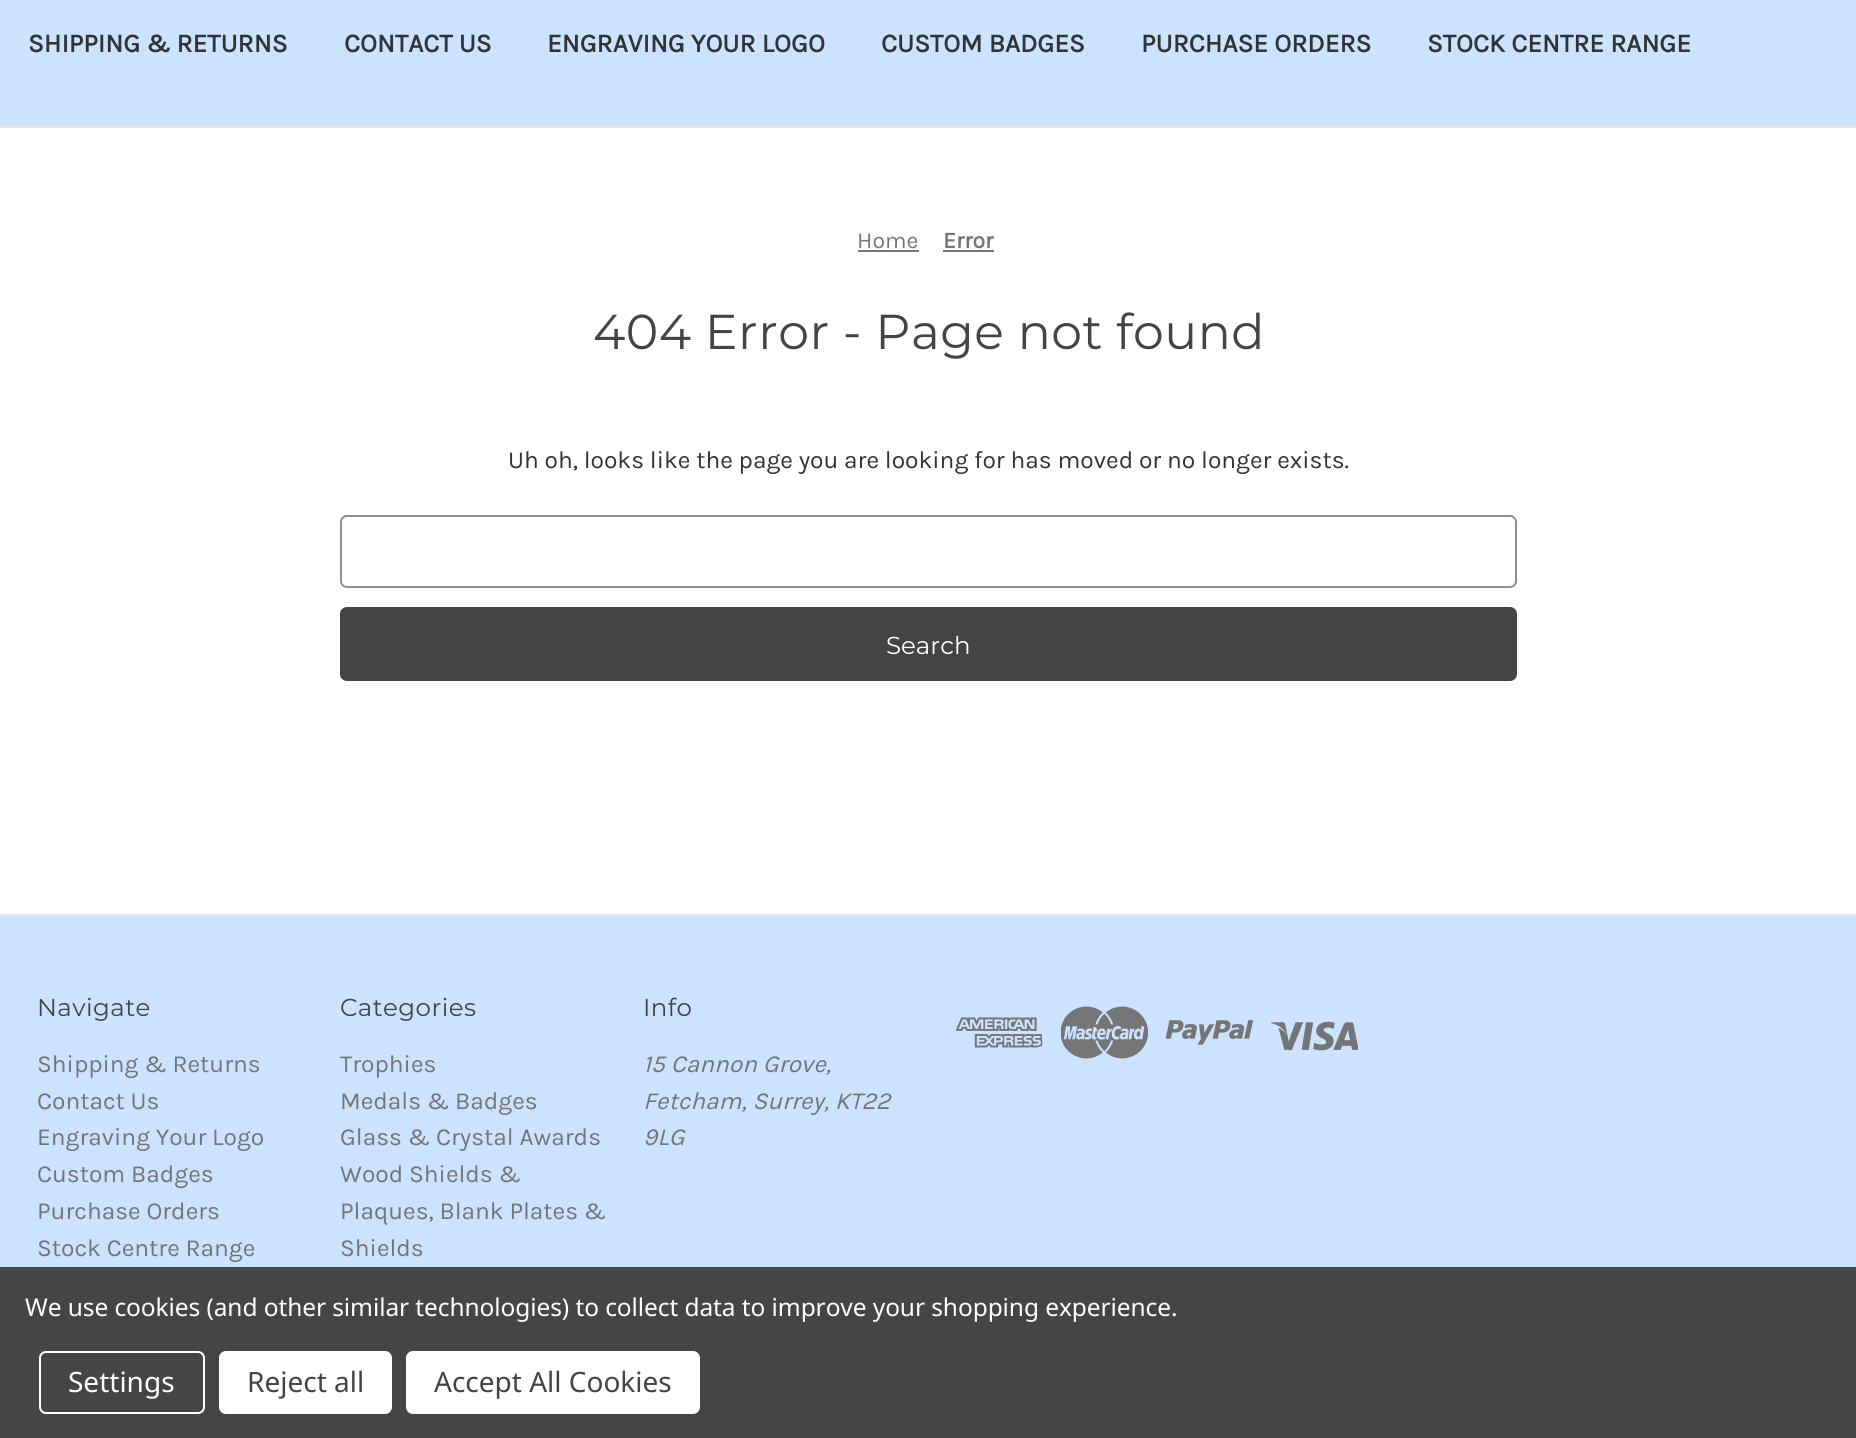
#include <cairo.h>
#include <math.h>
#include <stddef.h>


static void spaced_text(cairo_t *cr, double x, double y, const char *s, double letter, double word) {
    cairo_move_to(cr, x, y);
    while (*s) {
        char ch[5] = {0};
        int n = 0;
        do ch[n++] = *s++; while ((*s & 0xC0) == 0x80);
        cairo_show_text(cr, ch);
        cairo_rel_move_to(cr, letter + word * (*ch == ' '), 0);
    }
}

static void round_rect(cairo_t *cr, double x, double y, double w, double h, double r) {
    cairo_new_sub_path(cr);
    cairo_arc(cr, x + w - r, y + h - r, r, 0, M_PI / 2);
    cairo_arc(cr, x + r, y + h - r, r, M_PI / 2, M_PI);
    cairo_arc(cr, x + r, y + r, r, M_PI, 1.5 * M_PI);
    cairo_arc(cr, x + w - r, y + r, r, 1.5 * M_PI, 2 * M_PI);
    cairo_close_path(cr);
}

static void picture(cairo_t *cr, const char *path, double x, double y, double w, double h) {
    cairo_surface_t *image = cairo_image_surface_create_from_png(path);
    cairo_save(cr);
    cairo_set_source_surface(cr, image, x, y);
    cairo_rectangle(cr, x, y, w, h);
    cairo_fill(cr);
    cairo_restore(cr);
    cairo_surface_destroy(image);
}

int main(void) {
    cairo_surface_t *surface = cairo_image_surface_create(CAIRO_FORMAT_RGB24, 1856, 1438);
    cairo_t *cr = cairo_create(surface);
    cairo_font_options_t *options = cairo_font_options_create();
    cairo_font_options_set_hint_metrics(options, CAIRO_HINT_METRICS_OFF);
    cairo_font_options_set_hint_style(options, CAIRO_HINT_STYLE_NONE);
    cairo_set_font_options(cr, options);
    cairo_set_miter_limit(cr, 4);
    cairo_set_source_rgb(cr, 1, 1, 1);
    cairo_paint(cr);
    cairo_set_source_rgb(cr, 0.796, 0.89, 1);
    cairo_rectangle(cr, 0, 0, 1856, 126);
    cairo_fill(cr);
    cairo_set_source_rgb(cr, 0.898, 0.898, 0.898);
    cairo_rectangle(cr, 0, 126, 1856, 2);
    cairo_fill(cr);
    cairo_select_font_face(cr, "Karla", CAIRO_FONT_SLANT_NORMAL, CAIRO_FONT_WEIGHT_BOLD);
    cairo_set_font_size(cr, 26.25);
    cairo_set_source_rgb(cr, 0.2, 0.2, 0.2);
    cairo_move_to(cr, 28, 52);
    cairo_show_text(cr, "SHIPPING & RETURNS");
    cairo_move_to(cr, 344, 52);
    cairo_show_text(cr, "CONTACT US");
    cairo_move_to(cr, 547, 52);
    cairo_show_text(cr, "ENGRAVING YOUR LOGO");
    cairo_move_to(cr, 881, 52);
    cairo_show_text(cr, "CUSTOM BADGES");
    cairo_move_to(cr, 1141, 52);
    cairo_show_text(cr, "PURCHASE ORDERS");
    cairo_move_to(cr, 1427, 52);
    cairo_show_text(cr, "STOCK CENTRE RANGE");
    cairo_select_font_face(cr, "Karla", CAIRO_FONT_SLANT_NORMAL, CAIRO_FONT_WEIGHT_NORMAL);
    cairo_set_font_size(cr, 23);
    cairo_set_source_rgb(cr, 0.459, 0.459, 0.459);
    cairo_move_to(cr, 857, 248);
    cairo_show_text(cr, "Home");
    cairo_rectangle(cr, 858, 250, 61, 2);
    cairo_fill(cr);
    cairo_select_font_face(cr, "Karla", CAIRO_FONT_SLANT_NORMAL, CAIRO_FONT_WEIGHT_BOLD);
    cairo_move_to(cr, 943, 248);
    cairo_show_text(cr, "Error");
    cairo_rectangle(cr, 943, 250, 51, 2);
    cairo_fill(cr);
    cairo_select_font_face(cr, "Montserrat", CAIRO_FONT_SLANT_NORMAL, CAIRO_FONT_WEIGHT_NORMAL);
    cairo_set_font_size(cr, 49);
    cairo_set_source_rgb(cr, 0.267, 0.267, 0.267);
    spaced_text(cr, 593, 349, "404 Error - Page not found", 0.45, 0);
    cairo_select_font_face(cr, "Karla", CAIRO_FONT_SLANT_NORMAL, CAIRO_FONT_WEIGHT_NORMAL);
    cairo_set_font_size(cr, 24.5);
    cairo_set_source_rgb(cr, 0.2, 0.2, 0.2);
    cairo_move_to(cr, 508, 468);
    cairo_show_text(cr, "Uh oh, looks like the page you are looking for has moved or no longer exists.");
    round_rect(cr, 341, 516, 1175, 71, 6);
    cairo_set_source_rgb(cr, 0.561, 0.561, 0.561);
    cairo_stroke(cr);
    cairo_set_source_rgb(cr, 0.267, 0.267, 0.267);
    round_rect(cr, 341, 608, 1175, 72, 6);
    cairo_fill_preserve(cr);
    cairo_stroke(cr);
    cairo_select_font_face(cr, "Montserrat", CAIRO_FONT_SLANT_NORMAL, CAIRO_FONT_WEIGHT_NORMAL);
    cairo_set_source_rgb(cr, 1, 1, 1);
    cairo_move_to(cr, 886, 654);
    cairo_show_text(cr, "Search");
    cairo_set_source_rgb(cr, 0.796, 0.89, 1);
    cairo_rectangle(cr, 0, 916, 1856, 351);
    cairo_fill(cr);
    cairo_set_source_rgb(cr, 0.898, 0.898, 0.898);
    cairo_rectangle(cr, 0, 914, 1856, 2);
    cairo_fill(cr);
    cairo_set_source_rgb(cr, 0.267, 0.267, 0.267);
    spaced_text(cr, 37, 1016, "Navigate", 0.45, 0);
    cairo_select_font_face(cr, "Karla", CAIRO_FONT_SLANT_NORMAL, CAIRO_FONT_WEIGHT_NORMAL);
    cairo_set_source_rgb(cr, 0.459, 0.459, 0.459);
    cairo_move_to(cr, 37, 1072);
    cairo_show_text(cr, "Shipping & Returns");
    cairo_move_to(cr, 37, 1109);
    cairo_show_text(cr, "Contact Us");
    cairo_move_to(cr, 37, 1145);
    cairo_show_text(cr, "Engraving Your Logo");
    cairo_move_to(cr, 37, 1182);
    cairo_show_text(cr, "Custom Badges");
    cairo_move_to(cr, 37, 1219);
    cairo_show_text(cr, "Purchase Orders");
    cairo_move_to(cr, 37, 1256);
    cairo_show_text(cr, "Stock Centre Range");
    cairo_select_font_face(cr, "Montserrat", CAIRO_FONT_SLANT_NORMAL, CAIRO_FONT_WEIGHT_NORMAL);
    cairo_set_source_rgb(cr, 0.267, 0.267, 0.267);
    spaced_text(cr, 340, 1016, "Categories", 0.45, 0);
    cairo_select_font_face(cr, "Karla", CAIRO_FONT_SLANT_NORMAL, CAIRO_FONT_WEIGHT_NORMAL);
    cairo_set_source_rgb(cr, 0.459, 0.459, 0.459);
    cairo_move_to(cr, 340, 1072);
    cairo_show_text(cr, "Trophies");
    cairo_move_to(cr, 340, 1109);
    cairo_show_text(cr, "Medals & Badges");
    cairo_move_to(cr, 340, 1145);
    cairo_show_text(cr, "Glass & Crystal Awards");
    cairo_move_to(cr, 340, 1182);
    cairo_show_text(cr, "Wood Shields &");
    cairo_move_to(cr, 340, 1219);
    cairo_show_text(cr, "Plaques, Blank Plates &");
    cairo_move_to(cr, 340, 1256);
    cairo_show_text(cr, "Shields");
    cairo_select_font_face(cr, "Montserrat", CAIRO_FONT_SLANT_NORMAL, CAIRO_FONT_WEIGHT_NORMAL);
    cairo_set_source_rgb(cr, 0.267, 0.267, 0.267);
    spaced_text(cr, 643, 1016, "Info", 0.45, 0);
    cairo_select_font_face(cr, "Karla", CAIRO_FONT_SLANT_ITALIC, CAIRO_FONT_WEIGHT_NORMAL);
    cairo_set_source_rgb(cr, 0.459, 0.459, 0.459);
    cairo_move_to(cr, 643, 1072);
    cairo_show_text(cr, "15 Cannon Grove,");
    cairo_move_to(cr, 643, 1109);
    cairo_show_text(cr, "Fetcham, Surrey, KT22");
    cairo_move_to(cr, 643, 1145);
    cairo_show_text(cr, "9LG");
    picture(cr, "img1.png", 956, 1017, 87, 31);
    picture(cr, "img2.png", 1061, 1006, 87, 53);
    picture(cr, "img3.png", 1166, 1020, 87, 25);
    picture(cr, "img4.png", 1271, 1021, 87, 30);
    cairo_set_source_rgb(cr, 0.271, 0.271, 0.271);
    cairo_rectangle(cr, 0, 1267, 1856, 171);
    cairo_fill(cr);
    cairo_select_font_face(cr, "Noto Sans", CAIRO_FONT_SLANT_NORMAL, CAIRO_FONT_WEIGHT_NORMAL);
    cairo_set_source_rgb(cr, 1, 1, 1);
    spaced_text(cr, 25, 1316, "We use cookies (and other similar technologies) to collect data to improve your shopping experience.", -0.09, 0);
    round_rect(cr, 40, 1352, 164, 61, 6);
    cairo_stroke(cr);
    cairo_set_font_size(cr, 28);
    cairo_move_to(cr, 68, 1392);
    cairo_show_text(cr, "Settings");
    round_rect(cr, 219, 1351, 173, 63, 7);
    cairo_fill(cr);
    cairo_set_source_rgb(cr, 0.267, 0.267, 0.267);
    cairo_move_to(cr, 247, 1392);
    cairo_show_text(cr, "Reject all");
    cairo_set_source_rgb(cr, 1, 1, 1);
    round_rect(cr, 406, 1351, 294, 63, 7);
    cairo_fill(cr);
    cairo_set_source_rgb(cr, 0.267, 0.267, 0.267);
    cairo_move_to(cr, 434, 1392);
    cairo_show_text(cr, "Accept All Cookies");
    cairo_surface_write_to_png(surface, "page.png");
    cairo_font_options_destroy(options);
    cairo_destroy(cr);
    cairo_surface_destroy(surface);
    return 0;
}
